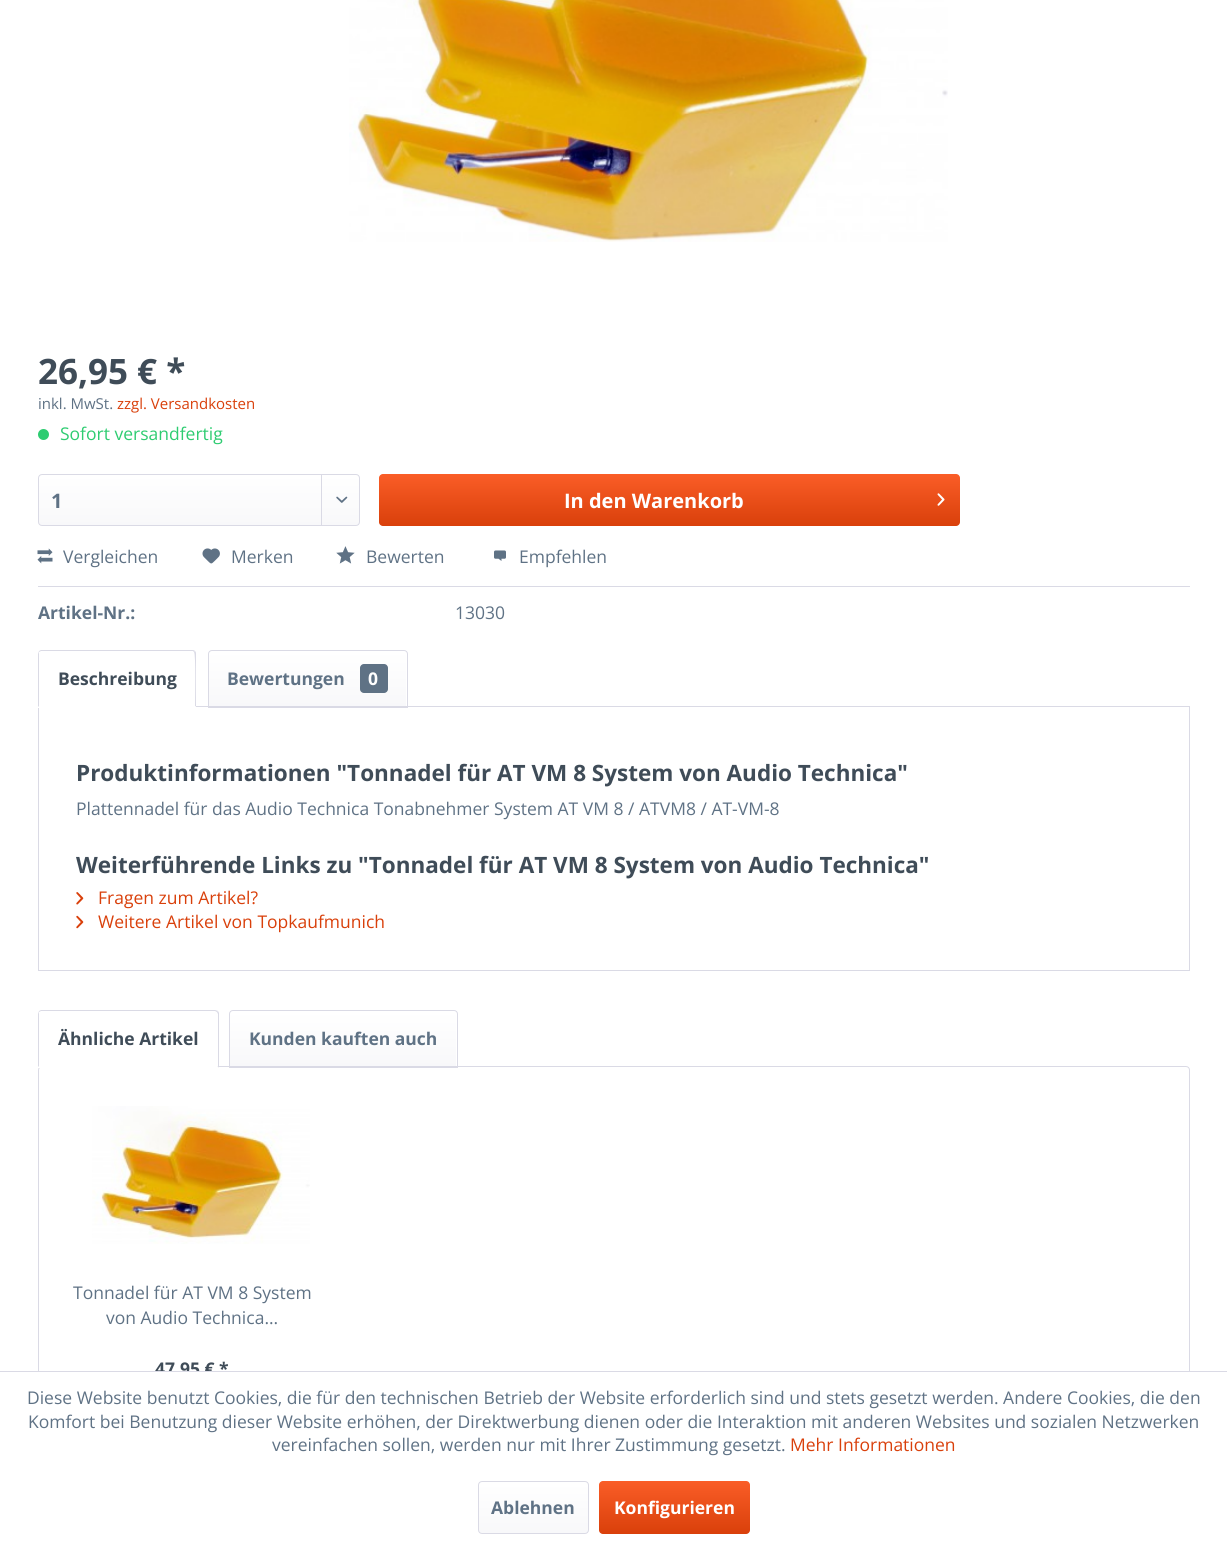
#include <cairo.h>
#include <math.h>
#include <stddef.h>


static void round_rect(cairo_t *cr, double x, double y, double w, double h, double r) {
    cairo_new_sub_path(cr);
    cairo_arc(cr, x + w - r, y + h - r, r, 0, M_PI / 2);
    cairo_arc(cr, x + r, y + h - r, r, M_PI / 2, M_PI);
    cairo_arc(cr, x + r, y + r, r, M_PI, 1.5 * M_PI);
    cairo_arc(cr, x + w - r, y + r, r, 1.5 * M_PI, 2 * M_PI);
    cairo_close_path(cr);
}

static void picture(cairo_t *cr, const char *path, double x, double y, double w, double h) {
    cairo_surface_t *image = cairo_image_surface_create_from_png(path);
    cairo_save(cr);
    cairo_set_source_surface(cr, image, x, y);
    cairo_rectangle(cr, x, y, w, h);
    cairo_fill(cr);
    cairo_restore(cr);
    cairo_surface_destroy(image);
}

int main(void) {
    cairo_surface_t *surface = cairo_image_surface_create(CAIRO_FORMAT_RGB24, 1227, 1546);
    cairo_t *cr = cairo_create(surface);
    cairo_font_options_t *options = cairo_font_options_create();
    cairo_font_options_set_hint_metrics(options, CAIRO_HINT_METRICS_OFF);
    cairo_font_options_set_hint_style(options, CAIRO_HINT_STYLE_NONE);
    cairo_set_font_options(cr, options);
    cairo_set_miter_limit(cr, 4);
    cairo_pattern_t *gradient;
    cairo_set_source_rgb(cr, 1, 1, 1);
    cairo_paint(cr);
    picture(cr, "img1.png", 349, 0, 599, 242);
    cairo_select_font_face(cr, "Open Sans", CAIRO_FONT_SLANT_NORMAL, CAIRO_FONT_WEIGHT_BOLD);
    cairo_set_font_size(cr, 35);
    cairo_set_source_rgb(cr, 0.247, 0.298, 0.345);
    cairo_move_to(cr, 38, 384);
    cairo_show_text(cr, "26,95 € *");
    cairo_select_font_face(cr, "Open Sans", CAIRO_FONT_SLANT_NORMAL, CAIRO_FONT_WEIGHT_NORMAL);
    cairo_set_font_size(cr, 15);
    cairo_set_source_rgb(cr, 0.373, 0.447, 0.522);
    cairo_move_to(cr, 38, 409);
    cairo_show_text(cr, "inkl. MwSt.");
    cairo_set_source_rgb(cr, 0.851, 0.251, 0.043);
    cairo_move_to(cr, 117, 409);
    cairo_show_text(cr, "zzgl. Versandkosten");
    cairo_set_source_rgb(cr, 0.18, 0.8, 0.443);
    cairo_new_path(cr);
    cairo_arc(cr, 43.5, 434.5, 5.5, 0, 2 * M_PI);
    cairo_fill(cr);
    cairo_set_font_size(cr, 17.5);
    cairo_move_to(cr, 60, 440);
    cairo_show_text(cr, "Sofort versandfertig");
    gradient = cairo_pattern_create_linear(199, 475, 199, 525);
    cairo_pattern_add_color_stop_rgba(gradient, 0, 1, 1, 1, 1);
    cairo_pattern_add_color_stop_rgba(gradient, 1, 0.973, 0.973, 0.98, 1);
    cairo_set_source(cr, gradient);
    cairo_pattern_destroy(gradient);
    round_rect(cr, 39, 475, 320, 50, 2.5);
    cairo_fill(cr);
    round_rect(cr, 38.5, 474.5, 321, 51, 3.5);
    cairo_set_source_rgb(cr, 0.855, 0.855, 0.898);
    cairo_set_line_width(cr, 1);
    cairo_stroke(cr);
    cairo_select_font_face(cr, "Open Sans", CAIRO_FONT_SLANT_NORMAL, CAIRO_FONT_WEIGHT_BOLD);
    cairo_set_font_size(cr, 20);
    cairo_set_source_rgb(cr, 0.373, 0.447, 0.522);
    cairo_move_to(cr, 51, 508);
    cairo_show_text(cr, "1");
    cairo_set_source_rgb(cr, 0.855, 0.855, 0.898);
    cairo_rectangle(cr, 321, 475, 1, 50);
    cairo_fill(cr);
    picture(cr, "img2.png", 336, 496, 12, 7);
    gradient = cairo_pattern_create_linear(669, 474, 669, 526);
    cairo_pattern_add_color_stop_rgba(gradient, 0, 0.98, 0.365, 0.153, 1);
    cairo_pattern_add_color_stop_rgba(gradient, 1, 0.851, 0.251, 0.043, 1);
    cairo_set_source(cr, gradient);
    cairo_pattern_destroy(gradient);
    round_rect(cr, 379, 474, 581, 52, 4);
    cairo_fill(cr);
    cairo_set_source_rgb(cr, 1, 1, 1);
    cairo_move_to(cr, 564, 508);
    cairo_show_text(cr, "In den Warenkorb");
    picture(cr, "img3.png", 937, 493, 8, 13);
    cairo_set_source_rgb(cr, 0.855, 0.855, 0.898);
    cairo_rectangle(cr, 38, 586, 1152, 1);
    cairo_fill(cr);
    picture(cr, "img4.png", 37, 548, 16, 16);
    cairo_select_font_face(cr, "Open Sans", CAIRO_FONT_SLANT_NORMAL, CAIRO_FONT_WEIGHT_NORMAL);
    cairo_set_font_size(cr, 17.5);
    cairo_set_source_rgb(cr, 0.373, 0.447, 0.522);
    cairo_move_to(cr, 63, 563);
    cairo_show_text(cr, "Vergleichen");
    picture(cr, "img5.png", 202, 548, 18, 16);
    cairo_move_to(cr, 231, 563);
    cairo_show_text(cr, "Merken");
    picture(cr, "img6.png", 336, 546, 19, 18);
    cairo_move_to(cr, 366, 563);
    cairo_show_text(cr, "Bewerten");
    picture(cr, "img7.png", 494, 550, 12, 11);
    cairo_move_to(cr, 519, 563);
    cairo_show_text(cr, "Empfehlen");
    cairo_select_font_face(cr, "Open Sans", CAIRO_FONT_SLANT_NORMAL, CAIRO_FONT_WEIGHT_BOLD);
    cairo_move_to(cr, 38, 619);
    cairo_show_text(cr, "Artikel-Nr.:");
    cairo_select_font_face(cr, "Open Sans", CAIRO_FONT_SLANT_NORMAL, CAIRO_FONT_WEIGHT_NORMAL);
    cairo_move_to(cr, 455, 619);
    cairo_show_text(cr, "13030");
    cairo_rectangle(cr, 38.5, 706.5, 1151, 264);
    cairo_set_source_rgb(cr, 0.855, 0.855, 0.898);
    cairo_stroke(cr);
    cairo_set_source_rgb(cr, 1, 1, 1);
    cairo_new_path(cr);
    cairo_move_to(cr, 42, 650);
    cairo_line_to(cr, 192, 650);
    cairo_curve_to(cr, 194, 650, 196, 652, 196, 654);
    cairo_line_to(cr, 196, 708);
    cairo_line_to(cr, 38, 708);
    cairo_line_to(cr, 38, 654);
    cairo_curve_to(cr, 38, 652, 40, 650, 42, 650);
    cairo_close_path(cr);
    cairo_fill(cr);
    cairo_set_source_rgb(cr, 0.855, 0.855, 0.898);
    cairo_new_path(cr);
    cairo_move_to(cr, 41, 650);
    cairo_line_to(cr, 39, 651);
    cairo_line_to(cr, 39, 652);
    cairo_line_to(cr, 41, 651);
    cairo_line_to(cr, 193, 651);
    cairo_line_to(cr, 194, 652);
    cairo_line_to(cr, 195, 651);
    cairo_curve_to(cr, 194, 650, 193, 650, 192, 650);
    cairo_close_path(cr);
    cairo_fill(cr);
    cairo_new_path(cr);
    cairo_move_to(cr, 195, 651);
    cairo_curve_to(cr, 196, 652, 196, 653, 196, 654);
    cairo_line_to(cr, 196, 707);
    cairo_line_to(cr, 195, 706);
    cairo_curve_to(cr, 195, 700, 196, 654, 194, 652);
    cairo_close_path(cr);
    cairo_fill(cr);
    cairo_set_source_rgb(cr, 1, 1, 1);
    cairo_new_path(cr);
    cairo_move_to(cr, 38, 708);
    cairo_line_to(cr, 39, 706);
    cairo_line_to(cr, 195, 706);
    cairo_line_to(cr, 196, 707);
    cairo_close_path(cr);
    cairo_fill(cr);
    cairo_set_source_rgb(cr, 0.855, 0.855, 0.898);
    cairo_new_path(cr);
    cairo_move_to(cr, 39, 651);
    cairo_line_to(cr, 38, 654);
    cairo_line_to(cr, 38, 707);
    cairo_line_to(cr, 39, 706);
    cairo_line_to(cr, 39, 654);
    cairo_line_to(cr, 39, 652);
    cairo_close_path(cr);
    cairo_fill(cr);
    cairo_select_font_face(cr, "Open Sans", CAIRO_FONT_SLANT_NORMAL, CAIRO_FONT_WEIGHT_BOLD);
    cairo_set_source_rgb(cr, 0.247, 0.298, 0.345);
    cairo_move_to(cr, 58, 685);
    cairo_show_text(cr, "Beschreibung");
    gradient = cairo_pattern_create_linear(308, 651, 308, 706);
    cairo_pattern_add_color_stop_rgba(gradient, 0, 1, 1, 1, 1);
    cairo_pattern_add_color_stop_rgba(gradient, 1, 0.973, 0.973, 0.98, 1);
    cairo_set_source(cr, gradient);
    cairo_pattern_destroy(gradient);
    cairo_new_path(cr);
    cairo_move_to(cr, 211.5, 651);
    cairo_line_to(cr, 403.5, 651);
    cairo_curve_to(cr, 405, 651, 406, 652, 406, 653.5);
    cairo_line_to(cr, 406, 706);
    cairo_line_to(cr, 209, 706);
    cairo_line_to(cr, 209, 653.5);
    cairo_curve_to(cr, 209, 652, 210, 651, 211.5, 651);
    cairo_close_path(cr);
    cairo_fill(cr);
    cairo_new_path(cr);
    cairo_move_to(cr, 212, 650.5);
    cairo_line_to(cr, 404, 650.5);
    cairo_curve_to(cr, 406, 650.5, 407.5, 652, 407.5, 654);
    cairo_line_to(cr, 407.5, 707.5);
    cairo_line_to(cr, 208.5, 707.5);
    cairo_line_to(cr, 208.5, 654);
    cairo_curve_to(cr, 208.5, 652, 210, 650.5, 212, 650.5);
    cairo_close_path(cr);
    cairo_set_source_rgb(cr, 0.855, 0.855, 0.898);
    cairo_stroke(cr);
    cairo_set_source_rgb(cr, 0.373, 0.447, 0.522);
    cairo_move_to(cr, 227, 685);
    cairo_show_text(cr, "Bewertungen");
    round_rect(cr, 360, 664, 28, 29, 4);
    cairo_fill(cr);
    cairo_set_source_rgb(cr, 1, 1, 1);
    cairo_move_to(cr, 368, 685);
    cairo_show_text(cr, "0");
    cairo_set_font_size(cr, 22.5);
    cairo_set_source_rgb(cr, 0.247, 0.298, 0.345);
    cairo_move_to(cr, 76, 781);
    cairo_show_text(cr, "Produktinformationen \"Tonnadel für AT VM 8 System von Audio Technica\"");
    cairo_select_font_face(cr, "Open Sans", CAIRO_FONT_SLANT_NORMAL, CAIRO_FONT_WEIGHT_NORMAL);
    cairo_set_font_size(cr, 17.5);
    cairo_set_source_rgb(cr, 0.373, 0.447, 0.522);
    cairo_move_to(cr, 76, 815);
    cairo_show_text(cr, "Plattennadel für das Audio Technica Tonabnehmer System AT VM 8 / ATVM8 / AT-VM-8");
    cairo_select_font_face(cr, "Open Sans", CAIRO_FONT_SLANT_NORMAL, CAIRO_FONT_WEIGHT_BOLD);
    cairo_set_font_size(cr, 22.5);
    cairo_set_source_rgb(cr, 0.247, 0.298, 0.345);
    cairo_move_to(cr, 76, 873);
    cairo_show_text(cr, "Weiterführende Links zu \"Tonnadel für AT VM 8 System von Audio Technica\"");
    picture(cr, "img8.png", 76, 892, 8, 13);
    cairo_select_font_face(cr, "Open Sans", CAIRO_FONT_SLANT_NORMAL, CAIRO_FONT_WEIGHT_NORMAL);
    cairo_set_font_size(cr, 17.5);
    cairo_set_source_rgb(cr, 0.851, 0.251, 0.043);
    cairo_move_to(cr, 98, 904);
    cairo_show_text(cr, "Fragen zum Artikel?");
    picture(cr, "img9.png", 76, 915, 8, 14);
    cairo_move_to(cr, 98, 928);
    cairo_show_text(cr, "Weitere Artikel von Topkaufmunich");
    round_rect(cr, 38.5, 1066.5, 1151, 339, 3.5);
    cairo_set_source_rgb(cr, 0.855, 0.855, 0.898);
    cairo_stroke(cr);
    cairo_set_source_rgb(cr, 1, 1, 1);
    cairo_new_path(cr);
    cairo_move_to(cr, 42, 1010);
    cairo_line_to(cr, 215, 1010);
    cairo_curve_to(cr, 217, 1010, 219, 1012, 219, 1014);
    cairo_line_to(cr, 219, 1068);
    cairo_line_to(cr, 38, 1068);
    cairo_line_to(cr, 38, 1014);
    cairo_curve_to(cr, 38, 1012, 40, 1010, 42, 1010);
    cairo_close_path(cr);
    cairo_fill(cr);
    cairo_set_source_rgb(cr, 0.855, 0.855, 0.898);
    cairo_new_path(cr);
    cairo_move_to(cr, 41, 1010);
    cairo_line_to(cr, 39, 1011);
    cairo_line_to(cr, 39, 1012);
    cairo_line_to(cr, 41, 1011);
    cairo_line_to(cr, 215, 1011);
    cairo_line_to(cr, 217, 1012);
    cairo_line_to(cr, 218, 1011);
    cairo_line_to(cr, 215, 1010);
    cairo_close_path(cr);
    cairo_fill(cr);
    cairo_new_path(cr);
    cairo_move_to(cr, 218, 1011);
    cairo_line_to(cr, 219, 1013);
    cairo_line_to(cr, 219, 1068);
    cairo_line_to(cr, 217, 1066);
    cairo_line_to(cr, 218, 1066);
    cairo_line_to(cr, 218, 1014);
    cairo_line_to(cr, 217, 1012);
    cairo_close_path(cr);
    cairo_fill(cr);
    cairo_set_source_rgb(cr, 1, 1, 1);
    cairo_new_path(cr);
    cairo_move_to(cr, 219, 1068);
    cairo_line_to(cr, 38, 1068);
    cairo_line_to(cr, 39, 1066);
    cairo_line_to(cr, 217, 1066);
    cairo_close_path(cr);
    cairo_fill(cr);
    cairo_set_source_rgb(cr, 0.855, 0.855, 0.898);
    cairo_new_path(cr);
    cairo_move_to(cr, 39, 1011);
    cairo_line_to(cr, 38, 1014);
    cairo_line_to(cr, 38, 1067);
    cairo_line_to(cr, 39, 1066);
    cairo_line_to(cr, 39, 1014);
    cairo_line_to(cr, 39, 1012);
    cairo_close_path(cr);
    cairo_fill(cr);
    cairo_select_font_face(cr, "Open Sans", CAIRO_FONT_SLANT_NORMAL, CAIRO_FONT_WEIGHT_BOLD);
    cairo_set_source_rgb(cr, 0.247, 0.298, 0.345);
    cairo_move_to(cr, 58, 1045);
    cairo_show_text(cr, "Ähnliche Artikel");
    gradient = cairo_pattern_create_linear(343, 1011, 343, 1066);
    cairo_pattern_add_color_stop_rgba(gradient, 0, 1, 1, 1, 1);
    cairo_pattern_add_color_stop_rgba(gradient, 1, 0.973, 0.973, 0.98, 1);
    cairo_set_source(cr, gradient);
    cairo_pattern_destroy(gradient);
    cairo_new_path(cr);
    cairo_move_to(cr, 232.5, 1011);
    cairo_line_to(cr, 453.5, 1011);
    cairo_curve_to(cr, 455, 1011, 456, 1012, 456, 1013.5);
    cairo_line_to(cr, 456, 1066);
    cairo_line_to(cr, 230, 1066);
    cairo_line_to(cr, 230, 1013.5);
    cairo_curve_to(cr, 230, 1012, 231, 1011, 232.5, 1011);
    cairo_close_path(cr);
    cairo_fill(cr);
    cairo_new_path(cr);
    cairo_move_to(cr, 233, 1010.5);
    cairo_line_to(cr, 454, 1010.5);
    cairo_curve_to(cr, 456, 1010.5, 457.5, 1012, 457.5, 1014);
    cairo_line_to(cr, 457.5, 1067.5);
    cairo_line_to(cr, 229.5, 1067.5);
    cairo_line_to(cr, 229.5, 1014);
    cairo_curve_to(cr, 229.5, 1012, 231, 1010.5, 233, 1010.5);
    cairo_close_path(cr);
    cairo_set_source_rgb(cr, 0.855, 0.855, 0.898);
    cairo_stroke(cr);
    cairo_set_source_rgb(cr, 0.373, 0.447, 0.522);
    cairo_move_to(cr, 249, 1045);
    cairo_show_text(cr, "Kunden kauften auch");
    picture(cr, "img10.png", 92, 1106, 218, 138);
    cairo_select_font_face(cr, "Open Sans", CAIRO_FONT_SLANT_NORMAL, CAIRO_FONT_WEIGHT_NORMAL);
    cairo_move_to(cr, 73, 1299);
    cairo_show_text(cr, "Tonnadel für AT VM 8 System");
    cairo_move_to(cr, 106, 1324);
    cairo_show_text(cr, "von Audio Technica...");
    cairo_select_font_face(cr, "Open Sans", CAIRO_FONT_SLANT_NORMAL, CAIRO_FONT_WEIGHT_BOLD);
    cairo_set_source_rgb(cr, 0.247, 0.298, 0.345);
    cairo_move_to(cr, 155, 1375);
    cairo_show_text(cr, "47,95 € *");
    cairo_set_source_rgb(cr, 1, 1, 1);
    cairo_rectangle(cr, 38, 1372, 1152, 34);
    cairo_fill(cr);
    cairo_set_source_rgb(cr, 0.855, 0.855, 0.898);
    cairo_rectangle(cr, 0, 1371, 1227, 1);
    cairo_fill(cr);
    cairo_select_font_face(cr, "Open Sans", CAIRO_FONT_SLANT_NORMAL, CAIRO_FONT_WEIGHT_NORMAL);
    cairo_set_source_rgb(cr, 0.373, 0.447, 0.522);
    cairo_move_to(cr, 27, 1404);
    cairo_show_text(cr, "Diese Website benutzt Cookies, die für den technischen Betrieb der Website erforderlich sind und stets gesetzt werden. Andere Cookies, die den");
    cairo_move_to(cr, 28, 1428);
    cairo_show_text(cr, "Komfort bei Benutzung dieser Website erhöhen, der Direktwerbung dienen oder die Interaktion mit anderen Websites und sozialen Netzwerken");
    cairo_move_to(cr, 272, 1451);
    cairo_show_text(cr, "vereinfachen sollen, werden nur mit Ihrer Zustimmung gesetzt.");
    cairo_set_source_rgb(cr, 0.851, 0.251, 0.043);
    cairo_move_to(cr, 790, 1451);
    cairo_show_text(cr, "Mehr Informationen");
    gradient = cairo_pattern_create_linear(533, 1483, 533, 1533);
    cairo_pattern_add_color_stop_rgba(gradient, 0, 1, 1, 1, 1);
    cairo_pattern_add_color_stop_rgba(gradient, 1, 0.973, 0.973, 0.98, 1);
    cairo_set_source(cr, gradient);
    cairo_pattern_destroy(gradient);
    round_rect(cr, 479, 1483, 109, 50, 2.5);
    cairo_fill(cr);
    round_rect(cr, 478.5, 1481.5, 110, 52, 3.5);
    cairo_set_source_rgb(cr, 0.855, 0.855, 0.898);
    cairo_stroke(cr);
    cairo_select_font_face(cr, "Open Sans", CAIRO_FONT_SLANT_NORMAL, CAIRO_FONT_WEIGHT_BOLD);
    cairo_set_source_rgb(cr, 0.373, 0.447, 0.522);
    cairo_move_to(cr, 491, 1514);
    cairo_show_text(cr, "Ablehnen");
    gradient = cairo_pattern_create_linear(674, 1481, 674, 1534);
    cairo_pattern_add_color_stop_rgba(gradient, 0, 0.98, 0.365, 0.153, 1);
    cairo_pattern_add_color_stop_rgba(gradient, 1, 0.851, 0.251, 0.043, 1);
    cairo_set_source(cr, gradient);
    cairo_pattern_destroy(gradient);
    round_rect(cr, 599, 1481, 151, 53, 4);
    cairo_fill(cr);
    cairo_set_source_rgb(cr, 1, 1, 1);
    cairo_move_to(cr, 614, 1514);
    cairo_show_text(cr, "Konfigurieren");
    cairo_surface_write_to_png(surface, "page.png");
    cairo_font_options_destroy(options);
    cairo_destroy(cr);
    cairo_surface_destroy(surface);
    return 0;
}
